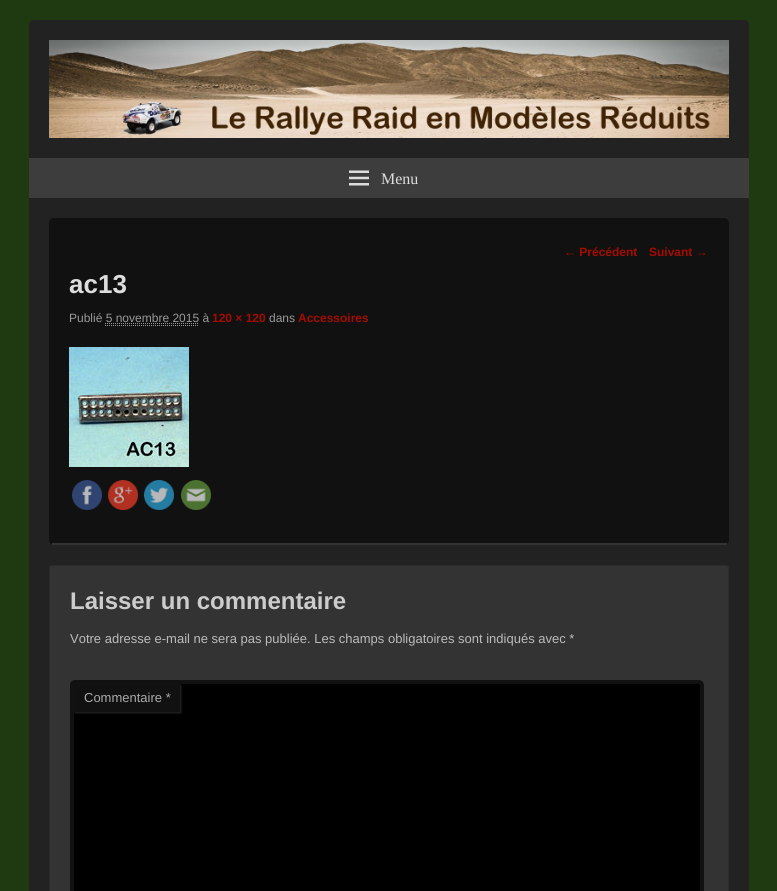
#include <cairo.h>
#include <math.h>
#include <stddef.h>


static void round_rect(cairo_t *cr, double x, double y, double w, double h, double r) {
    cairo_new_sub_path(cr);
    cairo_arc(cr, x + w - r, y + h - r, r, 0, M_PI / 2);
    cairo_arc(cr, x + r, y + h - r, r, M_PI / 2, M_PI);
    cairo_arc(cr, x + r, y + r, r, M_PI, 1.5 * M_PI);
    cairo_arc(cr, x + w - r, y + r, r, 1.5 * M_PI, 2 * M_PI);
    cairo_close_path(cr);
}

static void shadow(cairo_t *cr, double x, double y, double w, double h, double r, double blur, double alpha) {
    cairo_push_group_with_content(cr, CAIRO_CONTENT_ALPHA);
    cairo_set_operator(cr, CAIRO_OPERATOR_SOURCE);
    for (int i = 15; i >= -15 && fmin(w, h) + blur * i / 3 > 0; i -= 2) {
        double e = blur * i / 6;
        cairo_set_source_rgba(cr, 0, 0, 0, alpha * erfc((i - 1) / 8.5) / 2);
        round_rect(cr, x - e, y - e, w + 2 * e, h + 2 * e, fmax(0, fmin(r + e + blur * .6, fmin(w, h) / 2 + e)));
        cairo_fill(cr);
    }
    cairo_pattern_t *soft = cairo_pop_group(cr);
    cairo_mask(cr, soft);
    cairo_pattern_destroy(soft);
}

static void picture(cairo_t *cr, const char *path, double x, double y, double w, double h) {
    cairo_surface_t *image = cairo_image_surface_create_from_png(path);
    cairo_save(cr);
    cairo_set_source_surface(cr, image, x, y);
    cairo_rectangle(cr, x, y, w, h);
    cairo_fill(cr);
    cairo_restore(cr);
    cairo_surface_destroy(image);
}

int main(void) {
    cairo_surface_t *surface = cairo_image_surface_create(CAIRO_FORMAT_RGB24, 777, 891);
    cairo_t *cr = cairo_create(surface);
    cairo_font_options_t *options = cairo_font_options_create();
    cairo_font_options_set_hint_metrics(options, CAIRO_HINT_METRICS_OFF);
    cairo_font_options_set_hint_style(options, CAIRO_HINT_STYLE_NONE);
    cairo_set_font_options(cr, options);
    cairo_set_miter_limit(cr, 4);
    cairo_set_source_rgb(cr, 0.122, 0.227, 0.063);
    cairo_paint(cr);
    cairo_set_source_rgb(cr, 0.133, 0.133, 0.133);
    cairo_new_path(cr);
    cairo_move_to(cr, 34, 20);
    cairo_line_to(cr, 744, 20);
    cairo_curve_to(cr, 747, 20, 749, 22, 749, 25);
    cairo_line_to(cr, 749, 198);
    cairo_line_to(cr, 29, 198);
    cairo_line_to(cr, 29, 25);
    cairo_curve_to(cr, 29, 22, 31, 20, 34, 20);
    cairo_close_path(cr);
    cairo_fill(cr);
    picture(cr, "img1.png", 49, 40, 680, 98);
    cairo_set_source_rgb(cr, 0.239, 0.239, 0.239);
    cairo_rectangle(cr, 29, 158, 720, 40);
    cairo_fill(cr);
    picture(cr, "img2.png", 349, 170, 20, 16);
    cairo_select_font_face(cr, "Liberation Serif", CAIRO_FONT_SLANT_NORMAL, CAIRO_FONT_WEIGHT_NORMAL);
    cairo_set_font_size(cr, 16);
    cairo_set_source_rgb(cr, 0.867, 0.867, 0.867);
    cairo_move_to(cr, 381, 184);
    cairo_show_text(cr, "Menu");
    cairo_set_source_rgb(cr, 0.133, 0.133, 0.133);
    cairo_rectangle(cr, 29, 198, 720, 693);
    cairo_fill(cr);
    cairo_set_source_rgb(cr, 0.067, 0.067, 0.067);
    round_rect(cr, 49, 218, 680, 327, 5);
    cairo_fill(cr);
    cairo_select_font_face(cr, "Liberation Sans", CAIRO_FONT_SLANT_NORMAL, CAIRO_FONT_WEIGHT_BOLD);
    cairo_set_font_size(cr, 12);
    cairo_set_source_rgb(cr, 0.647, 0.043, 0);
    cairo_move_to(cr, 564, 256);
    cairo_show_text(cr, "← Précédent");
    cairo_move_to(cr, 649, 256);
    cairo_show_text(cr, "Suivant →");
    cairo_set_source_rgb(cr, 0.2, 0.2, 0.2);
    cairo_rectangle(cr, 52, 543, 675, 2);
    cairo_fill(cr);
    cairo_set_font_size(cr, 26);
    cairo_set_source_rgb(cr, 0.867, 0.867, 0.867);
    cairo_move_to(cr, 69, 293);
    cairo_show_text(cr, "ac13");
    cairo_select_font_face(cr, "Liberation Sans", CAIRO_FONT_SLANT_NORMAL, CAIRO_FONT_WEIGHT_NORMAL);
    cairo_set_font_size(cr, 12);
    cairo_set_source_rgb(cr, 0.6, 0.6, 0.6);
    cairo_move_to(cr, 69, 322);
    cairo_show_text(cr, "Publié 5 novembre 2015 à");
    cairo_select_font_face(cr, "Liberation Sans", CAIRO_FONT_SLANT_NORMAL, CAIRO_FONT_WEIGHT_BOLD);
    cairo_set_source_rgb(cr, 0.647, 0.043, 0);
    cairo_move_to(cr, 212, 322);
    cairo_show_text(cr, "120 × 120");
    cairo_select_font_face(cr, "Liberation Sans", CAIRO_FONT_SLANT_NORMAL, CAIRO_FONT_WEIGHT_NORMAL);
    cairo_set_source_rgb(cr, 0.6, 0.6, 0.6);
    cairo_move_to(cr, 269, 322);
    cairo_show_text(cr, "dans");
    cairo_select_font_face(cr, "Liberation Sans", CAIRO_FONT_SLANT_NORMAL, CAIRO_FONT_WEIGHT_BOLD);
    cairo_set_source_rgb(cr, 0.647, 0.043, 0);
    cairo_move_to(cr, 298, 322);
    cairo_show_text(cr, "Accessoires");
    cairo_new_path(cr);
    cairo_move_to(cr, 105, 323.5);
    cairo_line_to(cr, 198.5, 323.5);
    cairo_set_source_rgb(cr, 0.6, 0.6, 0.6);
    cairo_set_line_width(cr, 1);
    cairo_set_dash(cr, (double[]){1, 1}, 2, 0);
    cairo_stroke(cr);
    cairo_new_path(cr);
    cairo_move_to(cr, 105, 325.5);
    cairo_line_to(cr, 199, 325.5);
    cairo_stroke(cr);
    picture(cr, "img3.png", 69, 347, 120, 120);
    picture(cr, "img4.png", 72, 480, 30, 30);
    picture(cr, "img5.png", 108, 480, 30, 30);
    picture(cr, "img6.png", 144, 480, 30, 30);
    picture(cr, "img7.png", 181, 480, 30, 30);
    cairo_set_source_rgb(cr, 0.2, 0.2, 0.2);
    round_rect(cr, 49.5, 565.5, 679, 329, 2.5);
    cairo_fill_preserve(cr);
    cairo_set_source_rgb(cr, 0.173, 0.173, 0.173);
    cairo_set_dash(cr, NULL, 0, 0);
    cairo_stroke(cr);
    cairo_set_font_size(cr, 24);
    cairo_set_source_rgb(cr, 0.8, 0.8, 0.8);
    cairo_move_to(cr, 70, 609);
    cairo_show_text(cr, "Laisser un commentaire");
    cairo_select_font_face(cr, "Liberation Sans", CAIRO_FONT_SLANT_NORMAL, CAIRO_FONT_WEIGHT_NORMAL);
    cairo_set_font_size(cr, 13);
    cairo_set_source_rgb(cr, 0.733, 0.733, 0.733);
    cairo_move_to(cr, 70, 643);
    cairo_show_text(cr, "Votre adresse e-mail ne sera pas publiée. Les champs obligatoires sont indiqués avec *");
    cairo_set_source_rgb(cr, 0, 0, 0);
    round_rect(cr, 72, 682, 630, 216, 3);
    cairo_fill_preserve(cr);
    cairo_set_source_rgb(cr, 0.067, 0.067, 0.067);
    cairo_set_line_width(cr, 4);
    cairo_stroke(cr);
    cairo_set_source_rgb(cr, 0.2, 0.2, 0.2);
    shadow(cr, 75, 685, 106, 28, 0, 1, 0.8);
    cairo_set_source_rgb(cr, 0.067, 0.067, 0.067);
    cairo_rectangle(cr, 74, 684, 106, 28);
    cairo_fill(cr);
    cairo_set_source_rgb(cr, 0.667, 0.667, 0.667);
    cairo_move_to(cr, 84, 702);
    cairo_show_text(cr, "Commentaire *");
    cairo_surface_write_to_png(surface, "page.png");
    cairo_font_options_destroy(options);
    cairo_destroy(cr);
    cairo_surface_destroy(surface);
    return 0;
}
